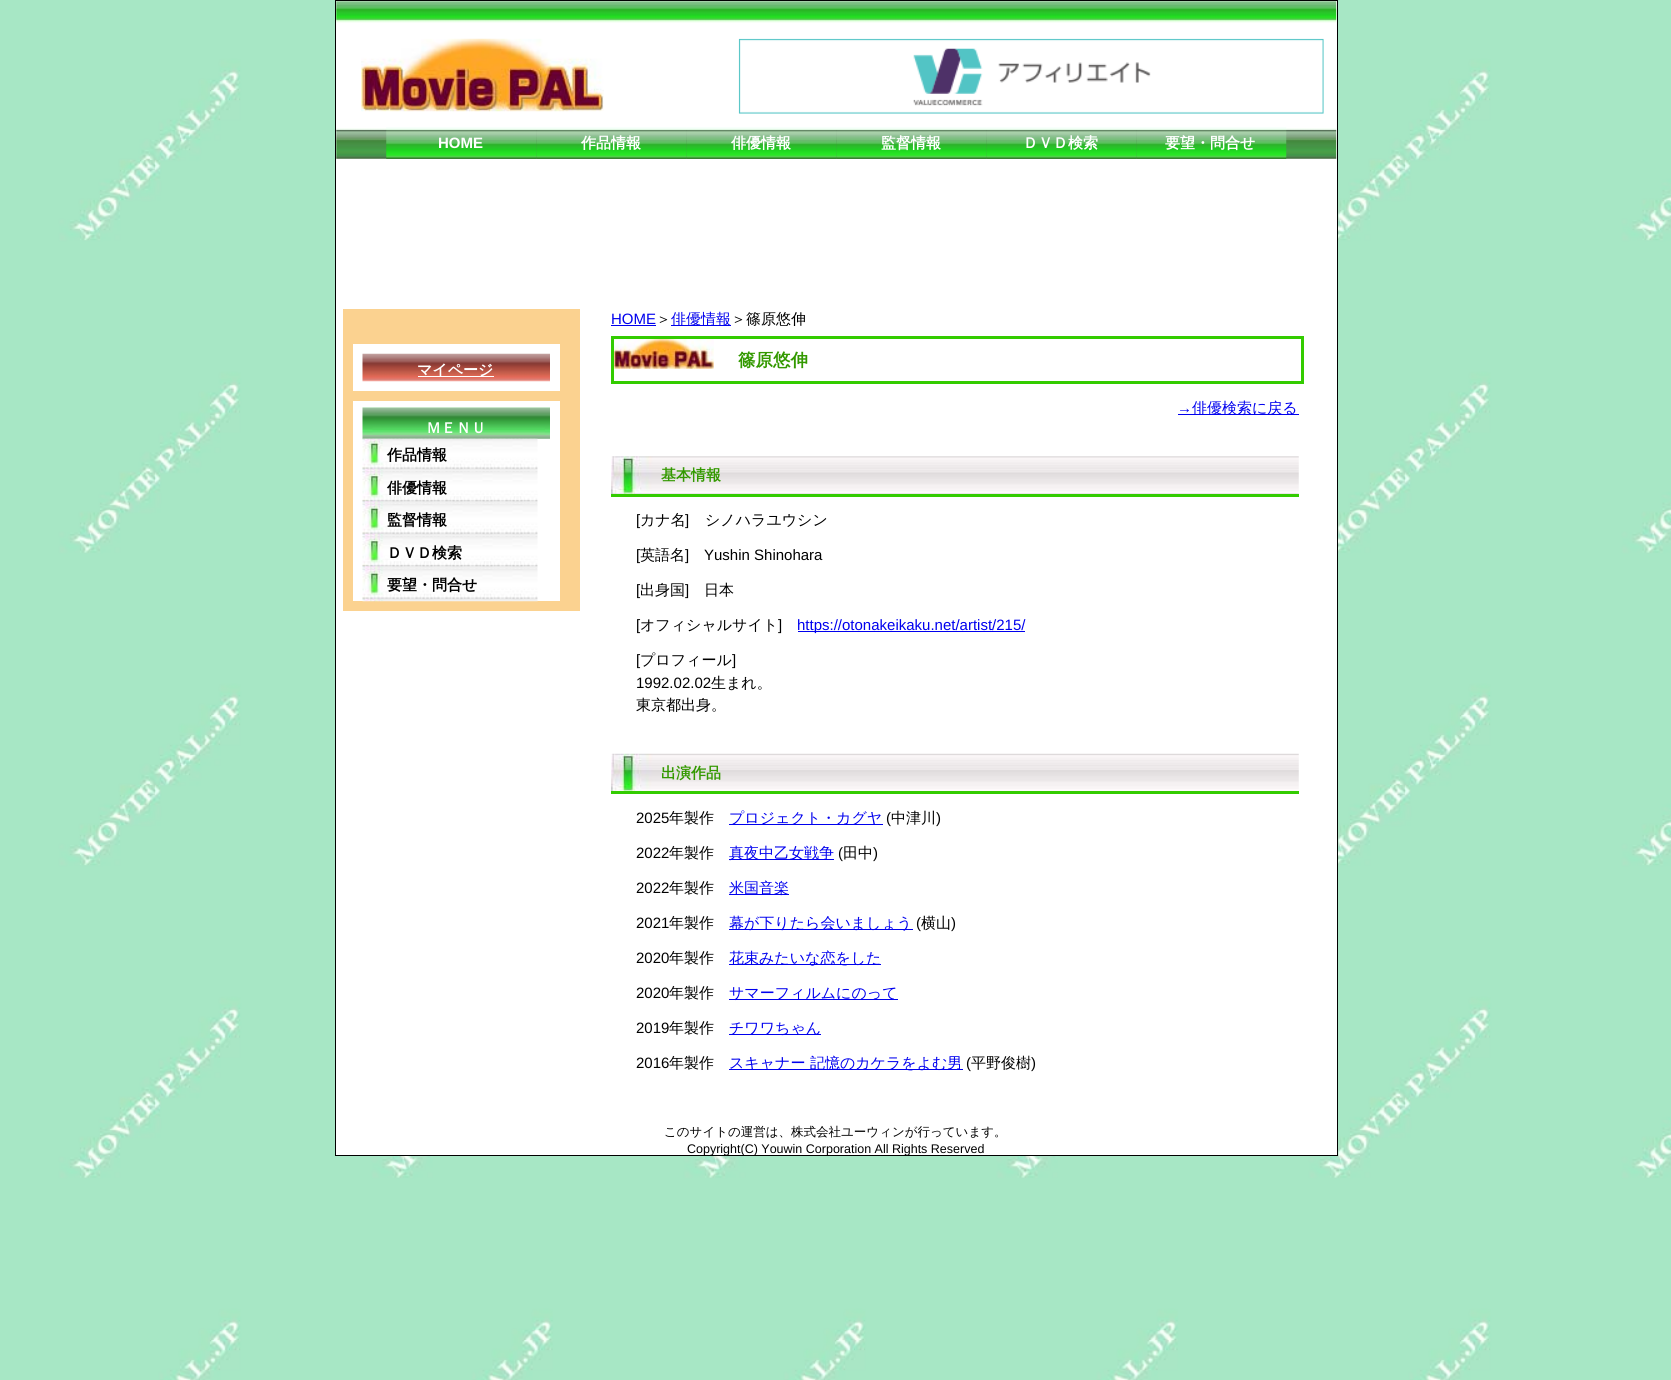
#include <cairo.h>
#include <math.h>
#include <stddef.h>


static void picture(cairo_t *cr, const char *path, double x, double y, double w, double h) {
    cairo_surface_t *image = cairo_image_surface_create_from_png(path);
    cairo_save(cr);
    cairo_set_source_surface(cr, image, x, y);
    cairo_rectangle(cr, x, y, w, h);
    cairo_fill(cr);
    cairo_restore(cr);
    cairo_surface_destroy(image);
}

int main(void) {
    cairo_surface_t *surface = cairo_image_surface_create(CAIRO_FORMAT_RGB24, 1671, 1380);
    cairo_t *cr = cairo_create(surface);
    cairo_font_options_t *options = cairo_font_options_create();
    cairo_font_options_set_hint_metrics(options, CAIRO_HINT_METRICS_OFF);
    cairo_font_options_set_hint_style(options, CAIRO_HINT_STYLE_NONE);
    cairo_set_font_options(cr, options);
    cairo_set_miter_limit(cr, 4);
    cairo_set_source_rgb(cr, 1, 1, 1);
    cairo_paint(cr);
    picture(cr, "img1.png", 0, 0, 1671, 1380);
    cairo_set_source_rgb(cr, 1, 1, 1);
    cairo_rectangle(cr, 335.5, 0.5, 1002, 1155);
    cairo_fill_preserve(cr);
    cairo_set_source_rgb(cr, 0, 0, 0);
    cairo_set_line_width(cr, 1);
    cairo_stroke(cr);
    picture(cr, "img2.png", 336, 1, 1001, 22);
    picture(cr, "img3.png", 361, 38, 243, 74);
    picture(cr, "img4.png", 738, 38, 586, 76);
    picture(cr, "img5.png", 336, 128, 1001, 31);
    picture(cr, "img6.png", 386, 127, 151, 32);
    cairo_select_font_face(cr, "Liberation Sans", CAIRO_FONT_SLANT_NORMAL, CAIRO_FONT_WEIGHT_BOLD);
    cairo_set_font_size(cr, 15);
    cairo_set_source_rgb(cr, 1, 1, 1);
    cairo_move_to(cr, 438, 148);
    cairo_show_text(cr, "HOME");
    picture(cr, "img7.png", 536, 127, 151, 32);
    cairo_select_font_face(cr, "WenQuanYi Zen Hei", CAIRO_FONT_SLANT_NORMAL, CAIRO_FONT_WEIGHT_BOLD);
    cairo_move_to(cr, 581, 148);
    cairo_show_text(cr, "作品情報");
    picture(cr, "img7.png", 686, 127, 151, 32);
    cairo_move_to(cr, 731, 148);
    cairo_show_text(cr, "俳優情報");
    picture(cr, "img7.png", 836, 127, 151, 32);
    cairo_move_to(cr, 881, 148);
    cairo_show_text(cr, "監督情報");
    picture(cr, "img7.png", 986, 127, 151, 32);
    cairo_move_to(cr, 1023, 148);
    cairo_show_text(cr, "ＤＶＤ検索");
    picture(cr, "img7.png", 1136, 127, 151, 32);
    cairo_move_to(cr, 1165, 148);
    cairo_show_text(cr, "要望・問合せ");
    cairo_set_source_rgb(cr, 0.984, 0.824, 0.565);
    cairo_rectangle(cr, 343, 309, 237, 302);
    cairo_fill(cr);
    cairo_set_source_rgb(cr, 1, 1, 1);
    cairo_rectangle(cr, 353, 344, 207, 47);
    cairo_fill(cr);
    picture(cr, "img8.png", 362, 353, 188, 29);
    cairo_rectangle(cr, 418, 376, 76, 1);
    cairo_fill(cr);
    cairo_move_to(cr, 417, 375);
    cairo_show_text(cr, "マイページ");
    cairo_rectangle(cr, 353, 401, 207, 200);
    cairo_fill(cr);
    picture(cr, "img9.png", 362, 407, 188, 32);
    cairo_move_to(cr, 426, 433);
    cairo_show_text(cr, "ＭＥＮＵ");
    picture(cr, "img10.png", 362, 438, 176, 34);
    cairo_set_source_rgb(cr, 0, 0, 0);
    cairo_move_to(cr, 387, 460);
    cairo_show_text(cr, "作品情報");
    picture(cr, "img11.png", 362, 471, 176, 33);
    cairo_move_to(cr, 387, 493);
    cairo_show_text(cr, "俳優情報");
    picture(cr, "img12.png", 362, 503, 176, 34);
    cairo_move_to(cr, 387, 525);
    cairo_show_text(cr, "監督情報");
    picture(cr, "img13.png", 362, 536, 176, 33);
    cairo_move_to(cr, 387, 558);
    cairo_show_text(cr, "ＤＶＤ検索");
    picture(cr, "img14.png", 362, 568, 176, 34);
    cairo_move_to(cr, 387, 590);
    cairo_show_text(cr, "要望・問合せ");
    cairo_select_font_face(cr, "Liberation Sans", CAIRO_FONT_SLANT_NORMAL, CAIRO_FONT_WEIGHT_NORMAL);
    cairo_set_source_rgb(cr, 0, 0, 0.933);
    cairo_move_to(cr, 611, 324);
    cairo_show_text(cr, "HOME");
    cairo_rectangle(cr, 611, 325, 45, 1);
    cairo_fill(cr);
    cairo_select_font_face(cr, "WenQuanYi Zen Hei Medium", CAIRO_FONT_SLANT_NORMAL, CAIRO_FONT_WEIGHT_NORMAL);
    cairo_set_source_rgb(cr, 0, 0, 0);
    cairo_move_to(cr, 656, 324);
    cairo_show_text(cr, "＞");
    cairo_set_source_rgb(cr, 0, 0, 0.933);
    cairo_rectangle(cr, 671, 325, 60, 1);
    cairo_fill(cr);
    cairo_move_to(cr, 671, 324);
    cairo_show_text(cr, "俳優情報");
    cairo_set_source_rgb(cr, 0, 0, 0);
    cairo_move_to(cr, 731, 324);
    cairo_show_text(cr, "＞篠原悠伸");
    picture(cr, "img15.png", 614, 339, 100, 30);
    cairo_rectangle(cr, 612.5, 337.5, 690, 45);
    cairo_set_source_rgb(cr, 0.2, 0.8, 0);
    cairo_set_line_width(cr, 3);
    cairo_stroke(cr);
    cairo_select_font_face(cr, "WenQuanYi Zen Hei", CAIRO_FONT_SLANT_NORMAL, CAIRO_FONT_WEIGHT_BOLD);
    cairo_set_font_size(cr, 17.5);
    cairo_set_source_rgb(cr, 0.2, 0.6, 0);
    cairo_move_to(cr, 738, 366);
    cairo_show_text(cr, "篠原悠伸");
    cairo_select_font_face(cr, "Liberation Sans", CAIRO_FONT_SLANT_NORMAL, CAIRO_FONT_WEIGHT_NORMAL);
    cairo_set_font_size(cr, 15);
    cairo_set_source_rgb(cr, 0, 0, 0.933);
    cairo_move_to(cr, 1177, 413);
    cairo_show_text(cr, "→");
    cairo_rectangle(cr, 1178, 414, 121, 1);
    cairo_fill(cr);
    cairo_select_font_face(cr, "WenQuanYi Zen Hei Medium", CAIRO_FONT_SLANT_NORMAL, CAIRO_FONT_WEIGHT_NORMAL);
    cairo_move_to(cr, 1192, 413);
    cairo_show_text(cr, "俳優検索に戻る");
    picture(cr, "img16.png", 611, 456, 688, 38);
    cairo_set_source_rgb(cr, 0.2, 0.8, 0);
    cairo_rectangle(cr, 611, 494, 688, 3);
    cairo_fill(cr);
    cairo_select_font_face(cr, "WenQuanYi Zen Hei", CAIRO_FONT_SLANT_NORMAL, CAIRO_FONT_WEIGHT_BOLD);
    cairo_set_source_rgb(cr, 0.2, 0.6, 0);
    cairo_move_to(cr, 661, 480);
    cairo_show_text(cr, "基本情報");
    cairo_select_font_face(cr, "Liberation Sans", CAIRO_FONT_SLANT_NORMAL, CAIRO_FONT_WEIGHT_NORMAL);
    cairo_set_source_rgb(cr, 0, 0, 0);
    cairo_move_to(cr, 636, 525);
    cairo_show_text(cr, "[");
    cairo_select_font_face(cr, "WenQuanYi Zen Hei Medium", CAIRO_FONT_SLANT_NORMAL, CAIRO_FONT_WEIGHT_NORMAL);
    cairo_move_to(cr, 640, 525);
    cairo_show_text(cr, "カナ名");
    cairo_select_font_face(cr, "Liberation Sans", CAIRO_FONT_SLANT_NORMAL, CAIRO_FONT_WEIGHT_NORMAL);
    cairo_move_to(cr, 685, 525);
    cairo_show_text(cr, "]");
    cairo_select_font_face(cr, "WenQuanYi Zen Hei Medium", CAIRO_FONT_SLANT_NORMAL, CAIRO_FONT_WEIGHT_NORMAL);
    cairo_move_to(cr, 705, 525);
    cairo_show_text(cr, "シノハラユウシン");
    cairo_select_font_face(cr, "Liberation Sans", CAIRO_FONT_SLANT_NORMAL, CAIRO_FONT_WEIGHT_NORMAL);
    cairo_move_to(cr, 636, 560);
    cairo_show_text(cr, "[");
    cairo_select_font_face(cr, "WenQuanYi Zen Hei Medium", CAIRO_FONT_SLANT_NORMAL, CAIRO_FONT_WEIGHT_NORMAL);
    cairo_move_to(cr, 640, 560);
    cairo_show_text(cr, "英語名");
    cairo_select_font_face(cr, "Liberation Sans", CAIRO_FONT_SLANT_NORMAL, CAIRO_FONT_WEIGHT_NORMAL);
    cairo_move_to(cr, 685, 560);
    cairo_show_text(cr, "]");
    cairo_move_to(cr, 704, 560);
    cairo_show_text(cr, "Yushin Shinohara");
    cairo_move_to(cr, 636, 595);
    cairo_show_text(cr, "[");
    cairo_select_font_face(cr, "WenQuanYi Zen Hei Medium", CAIRO_FONT_SLANT_NORMAL, CAIRO_FONT_WEIGHT_NORMAL);
    cairo_move_to(cr, 640, 595);
    cairo_show_text(cr, "出身国");
    cairo_select_font_face(cr, "Liberation Sans", CAIRO_FONT_SLANT_NORMAL, CAIRO_FONT_WEIGHT_NORMAL);
    cairo_move_to(cr, 685, 595);
    cairo_show_text(cr, "]");
    cairo_select_font_face(cr, "WenQuanYi Zen Hei Medium", CAIRO_FONT_SLANT_NORMAL, CAIRO_FONT_WEIGHT_NORMAL);
    cairo_move_to(cr, 704, 595);
    cairo_show_text(cr, "日本");
    cairo_select_font_face(cr, "Liberation Sans", CAIRO_FONT_SLANT_NORMAL, CAIRO_FONT_WEIGHT_NORMAL);
    cairo_move_to(cr, 636, 630);
    cairo_show_text(cr, "[");
    cairo_select_font_face(cr, "WenQuanYi Zen Hei Medium", CAIRO_FONT_SLANT_NORMAL, CAIRO_FONT_WEIGHT_NORMAL);
    cairo_move_to(cr, 640, 630);
    cairo_show_text(cr, "オフィシャルサイト");
    cairo_select_font_face(cr, "Liberation Sans", CAIRO_FONT_SLANT_NORMAL, CAIRO_FONT_WEIGHT_NORMAL);
    cairo_move_to(cr, 778, 630);
    cairo_show_text(cr, "]");
    cairo_set_source_rgb(cr, 0, 0, 0.933);
    cairo_rectangle(cr, 798, 631, 227, 1);
    cairo_fill(cr);
    cairo_move_to(cr, 797, 630);
    cairo_show_text(cr, "https://otonakeikaku.net/artist/215/");
    cairo_set_source_rgb(cr, 0, 0, 0);
    cairo_move_to(cr, 636, 665);
    cairo_show_text(cr, "[");
    cairo_select_font_face(cr, "WenQuanYi Zen Hei Medium", CAIRO_FONT_SLANT_NORMAL, CAIRO_FONT_WEIGHT_NORMAL);
    cairo_move_to(cr, 640, 665);
    cairo_show_text(cr, "プロフィール");
    cairo_select_font_face(cr, "Liberation Sans", CAIRO_FONT_SLANT_NORMAL, CAIRO_FONT_WEIGHT_NORMAL);
    cairo_move_to(cr, 732, 665);
    cairo_show_text(cr, "]");
    cairo_move_to(cr, 636, 688);
    cairo_show_text(cr, "1992.02.02");
    cairo_select_font_face(cr, "WenQuanYi Zen Hei Medium", CAIRO_FONT_SLANT_NORMAL, CAIRO_FONT_WEIGHT_NORMAL);
    cairo_move_to(cr, 711, 688);
    cairo_show_text(cr, "生まれ。");
    cairo_move_to(cr, 636, 710);
    cairo_show_text(cr, "東京都出身。");
    picture(cr, "img17.png", 611, 753, 688, 38);
    cairo_set_source_rgb(cr, 0.2, 0.8, 0);
    cairo_rectangle(cr, 611, 791, 688, 3);
    cairo_fill(cr);
    cairo_select_font_face(cr, "WenQuanYi Zen Hei", CAIRO_FONT_SLANT_NORMAL, CAIRO_FONT_WEIGHT_BOLD);
    cairo_set_source_rgb(cr, 0.2, 0.6, 0);
    cairo_move_to(cr, 661, 778);
    cairo_show_text(cr, "出演作品");
    cairo_select_font_face(cr, "Liberation Sans", CAIRO_FONT_SLANT_NORMAL, CAIRO_FONT_WEIGHT_NORMAL);
    cairo_set_source_rgb(cr, 0, 0, 0);
    cairo_move_to(cr, 636, 823);
    cairo_show_text(cr, "2025");
    cairo_select_font_face(cr, "WenQuanYi Zen Hei Medium", CAIRO_FONT_SLANT_NORMAL, CAIRO_FONT_WEIGHT_NORMAL);
    cairo_move_to(cr, 669, 823);
    cairo_show_text(cr, "年製作");
    cairo_set_source_rgb(cr, 0, 0, 0.933);
    cairo_rectangle(cr, 729, 824, 154, 1);
    cairo_fill(cr);
    cairo_move_to(cr, 729, 823);
    cairo_show_text(cr, "プロジェクト・カグヤ");
    cairo_select_font_face(cr, "Liberation Sans", CAIRO_FONT_SLANT_NORMAL, CAIRO_FONT_WEIGHT_NORMAL);
    cairo_set_source_rgb(cr, 0, 0, 0);
    cairo_move_to(cr, 886, 823);
    cairo_show_text(cr, "(");
    cairo_select_font_face(cr, "WenQuanYi Zen Hei Medium", CAIRO_FONT_SLANT_NORMAL, CAIRO_FONT_WEIGHT_NORMAL);
    cairo_move_to(cr, 891, 823);
    cairo_show_text(cr, "中津川");
    cairo_select_font_face(cr, "Liberation Sans", CAIRO_FONT_SLANT_NORMAL, CAIRO_FONT_WEIGHT_NORMAL);
    cairo_move_to(cr, 936, 823);
    cairo_show_text(cr, ")");
    cairo_move_to(cr, 636, 858);
    cairo_show_text(cr, "2022");
    cairo_select_font_face(cr, "WenQuanYi Zen Hei Medium", CAIRO_FONT_SLANT_NORMAL, CAIRO_FONT_WEIGHT_NORMAL);
    cairo_move_to(cr, 669, 858);
    cairo_show_text(cr, "年製作");
    cairo_set_source_rgb(cr, 0, 0, 0.933);
    cairo_rectangle(cr, 729, 859, 105, 1);
    cairo_fill(cr);
    cairo_move_to(cr, 729, 858);
    cairo_show_text(cr, "真夜中乙女戦争");
    cairo_select_font_face(cr, "Liberation Sans", CAIRO_FONT_SLANT_NORMAL, CAIRO_FONT_WEIGHT_NORMAL);
    cairo_set_source_rgb(cr, 0, 0, 0);
    cairo_move_to(cr, 838, 858);
    cairo_show_text(cr, "(");
    cairo_select_font_face(cr, "WenQuanYi Zen Hei Medium", CAIRO_FONT_SLANT_NORMAL, CAIRO_FONT_WEIGHT_NORMAL);
    cairo_move_to(cr, 843, 858);
    cairo_show_text(cr, "田中");
    cairo_select_font_face(cr, "Liberation Sans", CAIRO_FONT_SLANT_NORMAL, CAIRO_FONT_WEIGHT_NORMAL);
    cairo_move_to(cr, 873, 858);
    cairo_show_text(cr, ")");
    cairo_move_to(cr, 636, 893);
    cairo_show_text(cr, "2022");
    cairo_select_font_face(cr, "WenQuanYi Zen Hei Medium", CAIRO_FONT_SLANT_NORMAL, CAIRO_FONT_WEIGHT_NORMAL);
    cairo_move_to(cr, 669, 893);
    cairo_show_text(cr, "年製作");
    cairo_set_source_rgb(cr, 0, 0, 0.933);
    cairo_rectangle(cr, 729, 894, 60, 1);
    cairo_fill(cr);
    cairo_move_to(cr, 729, 893);
    cairo_show_text(cr, "米国音楽");
    cairo_select_font_face(cr, "Liberation Sans", CAIRO_FONT_SLANT_NORMAL, CAIRO_FONT_WEIGHT_NORMAL);
    cairo_set_source_rgb(cr, 0, 0, 0);
    cairo_move_to(cr, 636, 928);
    cairo_show_text(cr, "2021");
    cairo_select_font_face(cr, "WenQuanYi Zen Hei Medium", CAIRO_FONT_SLANT_NORMAL, CAIRO_FONT_WEIGHT_NORMAL);
    cairo_move_to(cr, 669, 928);
    cairo_show_text(cr, "年製作");
    cairo_set_source_rgb(cr, 0, 0, 0.933);
    cairo_rectangle(cr, 729, 929, 184, 1);
    cairo_fill(cr);
    cairo_move_to(cr, 729, 928);
    cairo_show_text(cr, "幕が下りたら会いましょう");
    cairo_select_font_face(cr, "Liberation Sans", CAIRO_FONT_SLANT_NORMAL, CAIRO_FONT_WEIGHT_NORMAL);
    cairo_set_source_rgb(cr, 0, 0, 0);
    cairo_move_to(cr, 916, 928);
    cairo_show_text(cr, "(");
    cairo_select_font_face(cr, "WenQuanYi Zen Hei Medium", CAIRO_FONT_SLANT_NORMAL, CAIRO_FONT_WEIGHT_NORMAL);
    cairo_move_to(cr, 921, 928);
    cairo_show_text(cr, "横山");
    cairo_select_font_face(cr, "Liberation Sans", CAIRO_FONT_SLANT_NORMAL, CAIRO_FONT_WEIGHT_NORMAL);
    cairo_move_to(cr, 951, 928);
    cairo_show_text(cr, ")");
    cairo_move_to(cr, 636, 963);
    cairo_show_text(cr, "2020");
    cairo_select_font_face(cr, "WenQuanYi Zen Hei Medium", CAIRO_FONT_SLANT_NORMAL, CAIRO_FONT_WEIGHT_NORMAL);
    cairo_move_to(cr, 669, 963);
    cairo_show_text(cr, "年製作");
    cairo_set_source_rgb(cr, 0, 0, 0.933);
    cairo_rectangle(cr, 729, 964, 152, 1);
    cairo_fill(cr);
    cairo_move_to(cr, 729, 963);
    cairo_show_text(cr, "花束みたいな恋をした");
    cairo_select_font_face(cr, "Liberation Sans", CAIRO_FONT_SLANT_NORMAL, CAIRO_FONT_WEIGHT_NORMAL);
    cairo_set_source_rgb(cr, 0, 0, 0);
    cairo_move_to(cr, 636, 998);
    cairo_show_text(cr, "2020");
    cairo_select_font_face(cr, "WenQuanYi Zen Hei Medium", CAIRO_FONT_SLANT_NORMAL, CAIRO_FONT_WEIGHT_NORMAL);
    cairo_move_to(cr, 669, 998);
    cairo_show_text(cr, "年製作");
    cairo_set_source_rgb(cr, 0, 0, 0.933);
    cairo_rectangle(cr, 729, 999, 169, 1);
    cairo_fill(cr);
    cairo_move_to(cr, 729, 998);
    cairo_show_text(cr, "サマーフィルムにのって");
    cairo_select_font_face(cr, "Liberation Sans", CAIRO_FONT_SLANT_NORMAL, CAIRO_FONT_WEIGHT_NORMAL);
    cairo_set_source_rgb(cr, 0, 0, 0);
    cairo_move_to(cr, 636, 1033);
    cairo_show_text(cr, "2019");
    cairo_select_font_face(cr, "WenQuanYi Zen Hei Medium", CAIRO_FONT_SLANT_NORMAL, CAIRO_FONT_WEIGHT_NORMAL);
    cairo_move_to(cr, 669, 1033);
    cairo_show_text(cr, "年製作");
    cairo_set_source_rgb(cr, 0, 0, 0.933);
    cairo_rectangle(cr, 729, 1034, 92, 1);
    cairo_fill(cr);
    cairo_move_to(cr, 729, 1033);
    cairo_show_text(cr, "チワワちゃん");
    cairo_select_font_face(cr, "Liberation Sans", CAIRO_FONT_SLANT_NORMAL, CAIRO_FONT_WEIGHT_NORMAL);
    cairo_set_source_rgb(cr, 0, 0, 0);
    cairo_move_to(cr, 636, 1068);
    cairo_show_text(cr, "2016");
    cairo_select_font_face(cr, "WenQuanYi Zen Hei Medium", CAIRO_FONT_SLANT_NORMAL, CAIRO_FONT_WEIGHT_NORMAL);
    cairo_move_to(cr, 669, 1068);
    cairo_show_text(cr, "年製作");
    cairo_set_source_rgb(cr, 0, 0, 0.933);
    cairo_rectangle(cr, 729, 1069, 234, 1);
    cairo_fill(cr);
    cairo_move_to(cr, 729, 1068);
    cairo_show_text(cr, "スキャナー 記憶のカケラをよむ男");
    cairo_select_font_face(cr, "Liberation Sans", CAIRO_FONT_SLANT_NORMAL, CAIRO_FONT_WEIGHT_NORMAL);
    cairo_set_source_rgb(cr, 0, 0, 0);
    cairo_move_to(cr, 966, 1068);
    cairo_show_text(cr, "(");
    cairo_select_font_face(cr, "WenQuanYi Zen Hei Medium", CAIRO_FONT_SLANT_NORMAL, CAIRO_FONT_WEIGHT_NORMAL);
    cairo_move_to(cr, 971, 1068);
    cairo_show_text(cr, "平野俊樹");
    cairo_select_font_face(cr, "Liberation Sans", CAIRO_FONT_SLANT_NORMAL, CAIRO_FONT_WEIGHT_NORMAL);
    cairo_move_to(cr, 1031, 1068);
    cairo_show_text(cr, ")");
    cairo_select_font_face(cr, "WenQuanYi Zen Hei Medium", CAIRO_FONT_SLANT_NORMAL, CAIRO_FONT_WEIGHT_NORMAL);
    cairo_set_font_size(cr, 12.5);
    cairo_move_to(cr, 664, 1136);
    cairo_show_text(cr, "このサイトの運営は、株式会社ユーウィンが行っています。");
    cairo_select_font_face(cr, "Liberation Sans", CAIRO_FONT_SLANT_NORMAL, CAIRO_FONT_WEIGHT_NORMAL);
    cairo_move_to(cr, 687, 1153);
    cairo_show_text(cr, "Copyright(C) Youwin Corporation All Rights Reserved");
    cairo_surface_write_to_png(surface, "page.png");
    cairo_font_options_destroy(options);
    cairo_destroy(cr);
    cairo_surface_destroy(surface);
    return 0;
}
